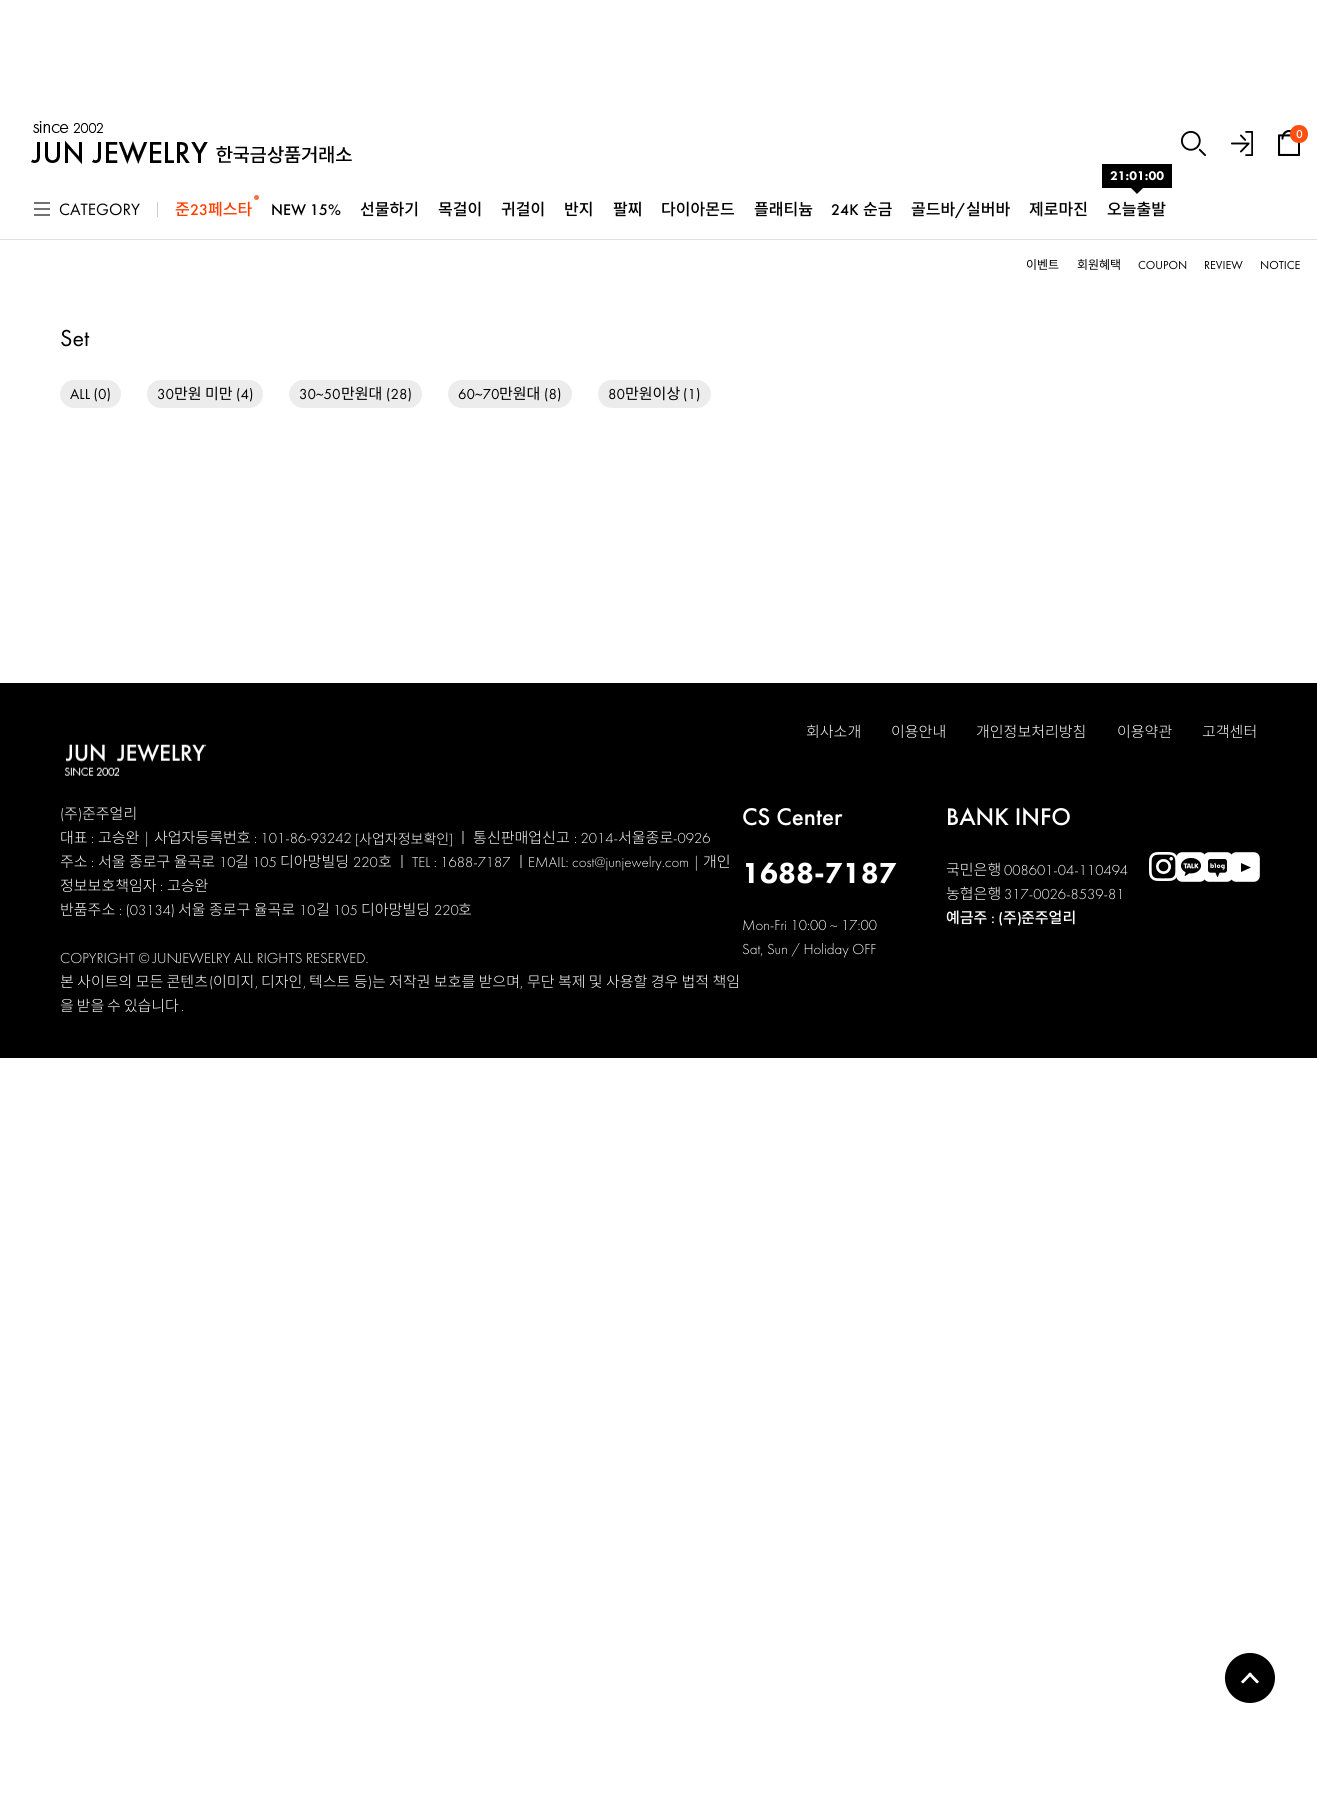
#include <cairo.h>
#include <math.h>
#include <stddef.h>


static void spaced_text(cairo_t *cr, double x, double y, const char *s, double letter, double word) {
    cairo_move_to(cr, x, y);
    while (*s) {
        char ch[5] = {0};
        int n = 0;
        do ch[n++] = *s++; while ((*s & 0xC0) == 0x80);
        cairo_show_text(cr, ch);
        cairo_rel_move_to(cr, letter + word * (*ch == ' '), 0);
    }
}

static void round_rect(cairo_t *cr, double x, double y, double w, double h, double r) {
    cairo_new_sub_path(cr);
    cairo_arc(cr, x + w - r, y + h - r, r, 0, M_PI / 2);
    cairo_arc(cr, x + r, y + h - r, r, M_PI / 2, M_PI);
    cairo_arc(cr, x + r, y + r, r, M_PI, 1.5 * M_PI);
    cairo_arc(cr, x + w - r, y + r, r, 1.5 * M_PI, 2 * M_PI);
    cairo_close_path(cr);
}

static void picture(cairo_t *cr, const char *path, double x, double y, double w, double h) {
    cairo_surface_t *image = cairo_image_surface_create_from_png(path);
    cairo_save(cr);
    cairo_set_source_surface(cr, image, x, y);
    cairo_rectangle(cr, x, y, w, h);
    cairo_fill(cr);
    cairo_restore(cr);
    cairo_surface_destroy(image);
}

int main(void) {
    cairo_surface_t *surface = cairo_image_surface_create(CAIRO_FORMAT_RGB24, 1317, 1803);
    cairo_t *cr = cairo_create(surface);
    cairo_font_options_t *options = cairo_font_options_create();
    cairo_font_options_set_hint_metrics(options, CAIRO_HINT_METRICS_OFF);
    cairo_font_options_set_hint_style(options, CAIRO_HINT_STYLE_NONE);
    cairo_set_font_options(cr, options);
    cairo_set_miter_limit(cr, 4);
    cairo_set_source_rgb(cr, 1, 1, 1);
    cairo_paint(cr);
    picture(cr, "img1.png", 31, 121, 321, 44);
    picture(cr, "img2.png", 1181, 131, 25, 25);
    picture(cr, "img3.png", 1231, 131, 22, 25);
    picture(cr, "img4.png", 1278, 130, 22, 26);
    cairo_set_source_rgb(cr, 1, 0.314, 0.075);
    cairo_new_path(cr);
    cairo_move_to(cr, 1299, 125);
    cairo_curve_to(cr, 1311, 125, 1311, 143, 1299, 143);
    cairo_curve_to(cr, 1287, 143, 1287, 125, 1299, 125);
    cairo_close_path(cr);
    cairo_fill(cr);
    cairo_select_font_face(cr, "Futura PT Medium", CAIRO_FONT_SLANT_NORMAL, CAIRO_FONT_WEIGHT_NORMAL);
    cairo_set_font_size(cr, 12);
    cairo_set_source_rgb(cr, 1, 1, 1);
    cairo_save(cr);
    cairo_translate(cr, 1296, 138);
    cairo_rotate(cr, 0.1 * M_PI / 180);
    cairo_move_to(cr, 0, 0);
    cairo_show_text(cr, "0");
    cairo_restore(cr);
    cairo_set_source_rgb(cr, 0.875, 0.875, 0.875);
    cairo_rectangle(cr, 0, 239, 1317, 1);
    cairo_fill(cr);
    cairo_set_source_rgb(cr, 0.443, 0.443, 0.443);
    cairo_rectangle(cr, 34, 208, 16, 2);
    cairo_fill(cr);
    cairo_rectangle(cr, 34, 202, 16, 2);
    cairo_fill(cr);
    cairo_rectangle(cr, 34, 214, 16, 2);
    cairo_fill(cr);
    cairo_select_font_face(cr, "Futura PT", CAIRO_FONT_SLANT_NORMAL, CAIRO_FONT_WEIGHT_NORMAL);
    cairo_set_font_size(cr, 17);
    cairo_set_source_rgb(cr, 0, 0, 0);
    cairo_move_to(cr, 59, 215);
    cairo_show_text(cr, "CATEGORY");
    cairo_set_source_rgb(cr, 0.796, 0.796, 0.796);
    cairo_rectangle(cr, 157, 202, 1, 15);
    cairo_fill(cr);
    cairo_set_source_rgb(cr, 1, 0.427, 0.267);
    cairo_arc(cr, 256.5, 197.5, 2.5, 0, 2 * M_PI);
    cairo_fill(cr);
    cairo_select_font_face(cr, "Noto Sans KR Medium", CAIRO_FONT_SLANT_NORMAL, CAIRO_FONT_WEIGHT_NORMAL);
    cairo_set_font_size(cr, 16);
    cairo_set_source_rgb(cr, 1, 0.247, 0);
    cairo_move_to(cr, 175, 215);
    cairo_show_text(cr, "준");
    cairo_select_font_face(cr, "Futura PT Medium", CAIRO_FONT_SLANT_NORMAL, CAIRO_FONT_WEIGHT_NORMAL);
    cairo_move_to(cr, 190, 215);
    cairo_show_text(cr, "23");
    cairo_select_font_face(cr, "Noto Sans KR Medium", CAIRO_FONT_SLANT_NORMAL, CAIRO_FONT_WEIGHT_NORMAL);
    cairo_move_to(cr, 208, 215);
    cairo_show_text(cr, "페스타");
    cairo_select_font_face(cr, "Futura PT Medium", CAIRO_FONT_SLANT_NORMAL, CAIRO_FONT_WEIGHT_NORMAL);
    cairo_set_source_rgb(cr, 0, 0, 0);
    cairo_move_to(cr, 271, 215);
    cairo_show_text(cr, "NEW 15%");
    cairo_select_font_face(cr, "Noto Sans KR Medium", CAIRO_FONT_SLANT_NORMAL, CAIRO_FONT_WEIGHT_NORMAL);
    cairo_move_to(cr, 360, 215);
    cairo_show_text(cr, "선물하기");
    cairo_move_to(cr, 438, 215);
    cairo_show_text(cr, "목걸이");
    cairo_move_to(cr, 501, 215);
    cairo_show_text(cr, "귀걸이");
    cairo_move_to(cr, 564, 215);
    cairo_show_text(cr, "반지");
    cairo_move_to(cr, 613, 215);
    cairo_show_text(cr, "팔찌");
    cairo_move_to(cr, 661, 215);
    cairo_show_text(cr, "다이아몬드");
    cairo_move_to(cr, 754, 215);
    cairo_show_text(cr, "플래티늄");
    cairo_select_font_face(cr, "Futura PT Medium", CAIRO_FONT_SLANT_NORMAL, CAIRO_FONT_WEIGHT_NORMAL);
    cairo_move_to(cr, 831, 215);
    cairo_show_text(cr, "24K");
    cairo_select_font_face(cr, "Noto Sans KR Medium", CAIRO_FONT_SLANT_NORMAL, CAIRO_FONT_WEIGHT_NORMAL);
    cairo_move_to(cr, 863, 215);
    cairo_show_text(cr, "순금");
    cairo_move_to(cr, 911, 215);
    cairo_show_text(cr, "골드바");
    cairo_select_font_face(cr, "Futura PT Medium", CAIRO_FONT_SLANT_NORMAL, CAIRO_FONT_WEIGHT_NORMAL);
    cairo_move_to(cr, 955, 215);
    cairo_show_text(cr, "/");
    cairo_select_font_face(cr, "Noto Sans KR Medium", CAIRO_FONT_SLANT_NORMAL, CAIRO_FONT_WEIGHT_NORMAL);
    cairo_move_to(cr, 966, 215);
    cairo_show_text(cr, "실버바");
    cairo_move_to(cr, 1029, 215);
    cairo_show_text(cr, "제로마진");
    cairo_rectangle(cr, 1102, 164, 70, 24);
    cairo_fill(cr);
    cairo_select_font_face(cr, "Futura PT Black", CAIRO_FONT_SLANT_NORMAL, CAIRO_FONT_WEIGHT_NORMAL);
    cairo_set_font_size(cr, 13);
    cairo_set_source_rgb(cr, 1, 1, 1);
    cairo_move_to(cr, 1110, 180);
    cairo_show_text(cr, "21:01:00");
    cairo_set_source_rgb(cr, 0, 0, 0);
    cairo_new_path(cr);
    cairo_move_to(cr, 1131, 188);
    cairo_line_to(cr, 1143, 188);
    cairo_line_to(cr, 1137, 194);
    cairo_close_path(cr);
    cairo_fill(cr);
    cairo_select_font_face(cr, "Noto Sans KR Medium", CAIRO_FONT_SLANT_NORMAL, CAIRO_FONT_WEIGHT_NORMAL);
    cairo_set_font_size(cr, 16);
    cairo_move_to(cr, 1107, 215);
    cairo_show_text(cr, "오늘출발");
    cairo_select_font_face(cr, "Noto Sans KR", CAIRO_FONT_SLANT_NORMAL, CAIRO_FONT_WEIGHT_NORMAL);
    cairo_set_font_size(cr, 12);
    cairo_move_to(cr, 1026, 269);
    cairo_show_text(cr, "이벤트");
    cairo_move_to(cr, 1077, 269);
    cairo_show_text(cr, "회원혜택");
    cairo_select_font_face(cr, "Futura PT", CAIRO_FONT_SLANT_NORMAL, CAIRO_FONT_WEIGHT_NORMAL);
    cairo_move_to(cr, 1138, 269);
    cairo_show_text(cr, "COUPON");
    cairo_move_to(cr, 1204, 269);
    cairo_show_text(cr, "REVIEW");
    cairo_move_to(cr, 1260, 269);
    cairo_show_text(cr, "NOTICE");
    cairo_set_font_size(cr, 24);
    cairo_move_to(cr, 60, 346);
    cairo_show_text(cr, "Set");
    cairo_set_source_rgb(cr, 0.925, 0.925, 0.925);
    round_rect(cr, 60, 380, 61, 28, 14);
    cairo_fill(cr);
    cairo_set_font_size(cr, 15);
    cairo_set_source_rgb(cr, 0, 0, 0);
    cairo_move_to(cr, 70, 399);
    cairo_show_text(cr, "ALL (0)");
    cairo_set_source_rgb(cr, 0.925, 0.925, 0.925);
    cairo_new_path(cr);
    cairo_move_to(cr, 161, 380);
    cairo_line_to(cr, 249, 380);
    cairo_curve_to(cr, 257, 380, 263, 386, 263, 394);
    cairo_curve_to(cr, 263, 402, 257, 408, 249, 408);
    cairo_line_to(cr, 161, 408);
    cairo_curve_to(cr, 153, 408, 147, 402, 147, 394);
    cairo_curve_to(cr, 147, 386, 153, 380, 161, 380);
    cairo_close_path(cr);
    cairo_fill(cr);
    cairo_set_source_rgb(cr, 0, 0, 0);
    cairo_save(cr);
    cairo_translate(cr, 157, 399);
    cairo_rotate(cr, 0.1 * M_PI / 180);
    cairo_move_to(cr, 0, 0);
    cairo_show_text(cr, "30");
    cairo_restore(cr);
    cairo_select_font_face(cr, "Noto Sans KR", CAIRO_FONT_SLANT_NORMAL, CAIRO_FONT_WEIGHT_NORMAL);
    cairo_save(cr);
    cairo_translate(cr, 174, 399);
    cairo_rotate(cr, 0.1 * M_PI / 180);
    cairo_move_to(cr, 0, 0);
    cairo_show_text(cr, "만원 미만");
    cairo_restore(cr);
    cairo_select_font_face(cr, "Futura PT", CAIRO_FONT_SLANT_NORMAL, CAIRO_FONT_WEIGHT_NORMAL);
    cairo_save(cr);
    cairo_translate(cr, 236, 399);
    cairo_rotate(cr, 0.1 * M_PI / 180);
    cairo_move_to(cr, 0, 0);
    cairo_show_text(cr, "(4)");
    cairo_restore(cr);
    cairo_set_source_rgb(cr, 0.925, 0.925, 0.925);
    cairo_new_path(cr);
    cairo_move_to(cr, 303, 380);
    cairo_line_to(cr, 408, 380);
    cairo_curve_to(cr, 416, 380, 422, 386, 422, 394);
    cairo_curve_to(cr, 422, 402, 416, 408, 408, 408);
    cairo_line_to(cr, 303, 408);
    cairo_curve_to(cr, 296, 408, 289, 402, 289, 394);
    cairo_curve_to(cr, 289, 386, 296, 380, 303, 380);
    cairo_close_path(cr);
    cairo_fill(cr);
    cairo_set_source_rgb(cr, 0, 0, 0);
    cairo_save(cr);
    cairo_translate(cr, 299, 399);
    cairo_rotate(cr, 0.1 * M_PI / 180);
    cairo_move_to(cr, 0, 0);
    cairo_show_text(cr, "30~50");
    cairo_restore(cr);
    cairo_select_font_face(cr, "Noto Sans KR", CAIRO_FONT_SLANT_NORMAL, CAIRO_FONT_WEIGHT_NORMAL);
    cairo_save(cr);
    cairo_translate(cr, 341, 399);
    cairo_rotate(cr, 0.1 * M_PI / 180);
    cairo_move_to(cr, 0, 0);
    cairo_show_text(cr, "만원대");
    cairo_restore(cr);
    cairo_select_font_face(cr, "Futura PT", CAIRO_FONT_SLANT_NORMAL, CAIRO_FONT_WEIGHT_NORMAL);
    cairo_save(cr);
    cairo_translate(cr, 386, 399);
    cairo_rotate(cr, 0.1 * M_PI / 180);
    cairo_move_to(cr, 0, 0);
    cairo_show_text(cr, "(28)");
    cairo_restore(cr);
    cairo_set_source_rgb(cr, 0.925, 0.925, 0.925);
    cairo_new_path(cr);
    cairo_move_to(cr, 462, 380);
    cairo_line_to(cr, 558, 380);
    cairo_curve_to(cr, 565, 380, 572, 386, 572, 394);
    cairo_curve_to(cr, 572, 402, 565, 408, 558, 408);
    cairo_line_to(cr, 462, 408);
    cairo_curve_to(cr, 454, 408, 448, 402, 448, 394);
    cairo_curve_to(cr, 448, 386, 454, 380, 462, 380);
    cairo_close_path(cr);
    cairo_fill(cr);
    cairo_set_source_rgb(cr, 0, 0, 0);
    cairo_save(cr);
    cairo_translate(cr, 458, 399);
    cairo_rotate(cr, 0.1 * M_PI / 180);
    cairo_move_to(cr, 0, 0);
    cairo_show_text(cr, "60~70");
    cairo_restore(cr);
    cairo_select_font_face(cr, "Noto Sans KR", CAIRO_FONT_SLANT_NORMAL, CAIRO_FONT_WEIGHT_NORMAL);
    cairo_save(cr);
    cairo_translate(cr, 499, 399);
    cairo_rotate(cr, 0.1 * M_PI / 180);
    cairo_move_to(cr, 0, 0);
    cairo_show_text(cr, "만원대");
    cairo_restore(cr);
    cairo_select_font_face(cr, "Futura PT", CAIRO_FONT_SLANT_NORMAL, CAIRO_FONT_WEIGHT_NORMAL);
    cairo_save(cr);
    cairo_translate(cr, 544, 399);
    cairo_rotate(cr, 0.1 * M_PI / 180);
    cairo_move_to(cr, 0, 0);
    cairo_show_text(cr, "(8)");
    cairo_restore(cr);
    cairo_set_source_rgb(cr, 0.925, 0.925, 0.925);
    cairo_new_path(cr);
    cairo_move_to(cr, 612, 380);
    cairo_line_to(cr, 697, 380);
    cairo_curve_to(cr, 704, 380, 711, 386, 711, 394);
    cairo_curve_to(cr, 711, 402, 704, 408, 697, 408);
    cairo_line_to(cr, 612, 408);
    cairo_curve_to(cr, 604, 408, 598, 402, 598, 394);
    cairo_curve_to(cr, 598, 386, 604, 380, 612, 380);
    cairo_close_path(cr);
    cairo_fill(cr);
    cairo_set_source_rgb(cr, 0, 0, 0);
    cairo_save(cr);
    cairo_translate(cr, 608, 399);
    cairo_rotate(cr, 0.1 * M_PI / 180);
    cairo_move_to(cr, 0, 0);
    cairo_show_text(cr, "80");
    cairo_restore(cr);
    cairo_select_font_face(cr, "Noto Sans KR", CAIRO_FONT_SLANT_NORMAL, CAIRO_FONT_WEIGHT_NORMAL);
    cairo_save(cr);
    cairo_translate(cr, 625, 399);
    cairo_rotate(cr, 0.1 * M_PI / 180);
    cairo_move_to(cr, 0, 0);
    cairo_show_text(cr, "만원이상");
    cairo_restore(cr);
    cairo_select_font_face(cr, "Futura PT", CAIRO_FONT_SLANT_NORMAL, CAIRO_FONT_WEIGHT_NORMAL);
    cairo_save(cr);
    cairo_translate(cr, 683, 399);
    cairo_rotate(cr, 0.1 * M_PI / 180);
    cairo_move_to(cr, 0, 0);
    cairo_show_text(cr, "(1)");
    cairo_restore(cr);
    cairo_rectangle(cr, 0, 683, 1317, 375);
    cairo_fill(cr);
    cairo_select_font_face(cr, "Noto Sans KR Light", CAIRO_FONT_SLANT_NORMAL, CAIRO_FONT_WEIGHT_NORMAL);
    cairo_set_source_rgb(cr, 1, 1, 1);
    cairo_move_to(cr, 806, 737);
    cairo_show_text(cr, "회사소개");
    cairo_move_to(cr, 891, 737);
    cairo_show_text(cr, "이용안내");
    cairo_move_to(cr, 976, 737);
    cairo_show_text(cr, "개인정보처리방침");
    cairo_move_to(cr, 1117, 737);
    cairo_show_text(cr, "이용약관");
    cairo_move_to(cr, 1202, 737);
    cairo_show_text(cr, "고객센터");
    picture(cr, "img5.png", 65, 743, 141, 33);
    cairo_select_font_face(cr, "Futura PT Light", CAIRO_FONT_SLANT_NORMAL, CAIRO_FONT_WEIGHT_NORMAL);
    cairo_move_to(cr, 60, 819);
    cairo_show_text(cr, "(");
    cairo_select_font_face(cr, "Noto Sans KR Light", CAIRO_FONT_SLANT_NORMAL, CAIRO_FONT_WEIGHT_NORMAL);
    cairo_move_to(cr, 64, 819);
    cairo_show_text(cr, "주");
    cairo_select_font_face(cr, "Futura PT Light", CAIRO_FONT_SLANT_NORMAL, CAIRO_FONT_WEIGHT_NORMAL);
    cairo_move_to(cr, 78, 819);
    cairo_show_text(cr, ")");
    cairo_select_font_face(cr, "Noto Sans KR Light", CAIRO_FONT_SLANT_NORMAL, CAIRO_FONT_WEIGHT_NORMAL);
    cairo_move_to(cr, 82, 819);
    cairo_show_text(cr, "준주얼리");
    cairo_move_to(cr, 60, 843);
    cairo_show_text(cr, "대표");
    cairo_select_font_face(cr, "Futura PT Light", CAIRO_FONT_SLANT_NORMAL, CAIRO_FONT_WEIGHT_NORMAL);
    cairo_move_to(cr, 91, 843);
    cairo_show_text(cr, ":");
    cairo_select_font_face(cr, "Noto Sans KR Light", CAIRO_FONT_SLANT_NORMAL, CAIRO_FONT_WEIGHT_NORMAL);
    cairo_move_to(cr, 98, 843);
    cairo_show_text(cr, "고승완");
    cairo_select_font_face(cr, "Futura PT Light", CAIRO_FONT_SLANT_NORMAL, CAIRO_FONT_WEIGHT_NORMAL);
    cairo_move_to(cr, 143, 843);
    cairo_show_text(cr, "|");
    cairo_select_font_face(cr, "Noto Sans KR Light", CAIRO_FONT_SLANT_NORMAL, CAIRO_FONT_WEIGHT_NORMAL);
    cairo_move_to(cr, 154, 843);
    cairo_show_text(cr, "사업자등록번호");
    cairo_select_font_face(cr, "Futura PT Light", CAIRO_FONT_SLANT_NORMAL, CAIRO_FONT_WEIGHT_NORMAL);
    cairo_move_to(cr, 254, 843);
    cairo_show_text(cr, ": 101-86-93242");
    cairo_set_font_size(cr, 14);
    cairo_move_to(cr, 355, 844);
    cairo_show_text(cr, "[");
    cairo_select_font_face(cr, "Noto Sans KR Light", CAIRO_FONT_SLANT_NORMAL, CAIRO_FONT_WEIGHT_NORMAL);
    cairo_move_to(cr, 359, 844);
    cairo_show_text(cr, "사업자정보확인");
    cairo_select_font_face(cr, "Futura PT Light", CAIRO_FONT_SLANT_NORMAL, CAIRO_FONT_WEIGHT_NORMAL);
    cairo_move_to(cr, 449, 844);
    cairo_show_text(cr, "]");
    cairo_select_font_face(cr, "Noto Sans KR Light", CAIRO_FONT_SLANT_NORMAL, CAIRO_FONT_WEIGHT_NORMAL);
    cairo_set_font_size(cr, 15);
    cairo_move_to(cr, 456, 843);
    cairo_show_text(cr, "ㅣ 통신판매업신고");
    cairo_select_font_face(cr, "Futura PT Light", CAIRO_FONT_SLANT_NORMAL, CAIRO_FONT_WEIGHT_NORMAL);
    cairo_move_to(cr, 574, 843);
    cairo_show_text(cr, ": 2014-");
    cairo_select_font_face(cr, "Noto Sans KR Light", CAIRO_FONT_SLANT_NORMAL, CAIRO_FONT_WEIGHT_NORMAL);
    cairo_move_to(cr, 618, 843);
    cairo_show_text(cr, "서울종로");
    cairo_select_font_face(cr, "Futura PT Light", CAIRO_FONT_SLANT_NORMAL, CAIRO_FONT_WEIGHT_NORMAL);
    cairo_move_to(cr, 673, 843);
    cairo_show_text(cr, "-0926");
    cairo_select_font_face(cr, "Noto Sans KR Light", CAIRO_FONT_SLANT_NORMAL, CAIRO_FONT_WEIGHT_NORMAL);
    cairo_move_to(cr, 60, 867);
    cairo_show_text(cr, "주소");
    cairo_select_font_face(cr, "Futura PT Light", CAIRO_FONT_SLANT_NORMAL, CAIRO_FONT_WEIGHT_NORMAL);
    cairo_move_to(cr, 91, 867);
    cairo_show_text(cr, ":");
    cairo_select_font_face(cr, "Noto Sans KR Light", CAIRO_FONT_SLANT_NORMAL, CAIRO_FONT_WEIGHT_NORMAL);
    cairo_move_to(cr, 98, 867);
    cairo_show_text(cr, "서울 종로구 율곡로");
    cairo_select_font_face(cr, "Futura PT Light", CAIRO_FONT_SLANT_NORMAL, CAIRO_FONT_WEIGHT_NORMAL);
    cairo_move_to(cr, 219, 867);
    cairo_show_text(cr, "10");
    cairo_select_font_face(cr, "Noto Sans KR Light", CAIRO_FONT_SLANT_NORMAL, CAIRO_FONT_WEIGHT_NORMAL);
    cairo_move_to(cr, 235, 867);
    cairo_show_text(cr, "길");
    cairo_select_font_face(cr, "Futura PT Light", CAIRO_FONT_SLANT_NORMAL, CAIRO_FONT_WEIGHT_NORMAL);
    cairo_move_to(cr, 252, 867);
    cairo_show_text(cr, "105");
    cairo_select_font_face(cr, "Noto Sans KR Light", CAIRO_FONT_SLANT_NORMAL, CAIRO_FONT_WEIGHT_NORMAL);
    cairo_move_to(cr, 280, 867);
    cairo_show_text(cr, "디아망빌딩");
    cairo_select_font_face(cr, "Futura PT Light", CAIRO_FONT_SLANT_NORMAL, CAIRO_FONT_WEIGHT_NORMAL);
    cairo_move_to(cr, 353, 867);
    cairo_show_text(cr, "220");
    cairo_select_font_face(cr, "Noto Sans KR Light", CAIRO_FONT_SLANT_NORMAL, CAIRO_FONT_WEIGHT_NORMAL);
    cairo_move_to(cr, 378, 867);
    cairo_show_text(cr, "호 ㅣ");
    cairo_select_font_face(cr, "Futura PT Light", CAIRO_FONT_SLANT_NORMAL, CAIRO_FONT_WEIGHT_NORMAL);
    cairo_move_to(cr, 412, 867);
    cairo_show_text(cr, "TEL : 1688-7187");
    cairo_select_font_face(cr, "Noto Sans KR Light", CAIRO_FONT_SLANT_NORMAL, CAIRO_FONT_WEIGHT_NORMAL);
    cairo_move_to(cr, 514, 867);
    cairo_show_text(cr, "ㅣ");
    cairo_select_font_face(cr, "Futura PT Light", CAIRO_FONT_SLANT_NORMAL, CAIRO_FONT_WEIGHT_NORMAL);
    cairo_move_to(cr, 528, 867);
    cairo_show_text(cr, "EMAIL: cost@junjewelry.com |");
    cairo_select_font_face(cr, "Noto Sans KR Light", CAIRO_FONT_SLANT_NORMAL, CAIRO_FONT_WEIGHT_NORMAL);
    cairo_move_to(cr, 703, 867);
    cairo_show_text(cr, "개인");
    cairo_move_to(cr, 60, 891);
    cairo_show_text(cr, "정보보호책임자");
    cairo_select_font_face(cr, "Futura PT Light", CAIRO_FONT_SLANT_NORMAL, CAIRO_FONT_WEIGHT_NORMAL);
    cairo_move_to(cr, 160, 891);
    cairo_show_text(cr, ":");
    cairo_select_font_face(cr, "Noto Sans KR Light", CAIRO_FONT_SLANT_NORMAL, CAIRO_FONT_WEIGHT_NORMAL);
    cairo_move_to(cr, 167, 891);
    cairo_show_text(cr, "고승완");
    cairo_move_to(cr, 60, 915);
    cairo_show_text(cr, "반품주소");
    cairo_select_font_face(cr, "Futura PT Light", CAIRO_FONT_SLANT_NORMAL, CAIRO_FONT_WEIGHT_NORMAL);
    cairo_move_to(cr, 119, 915);
    cairo_show_text(cr, ": (03134)");
    cairo_select_font_face(cr, "Noto Sans KR Light", CAIRO_FONT_SLANT_NORMAL, CAIRO_FONT_WEIGHT_NORMAL);
    cairo_move_to(cr, 178, 915);
    cairo_show_text(cr, "서울 종로구 율곡로");
    cairo_select_font_face(cr, "Futura PT Light", CAIRO_FONT_SLANT_NORMAL, CAIRO_FONT_WEIGHT_NORMAL);
    cairo_move_to(cr, 299, 915);
    cairo_show_text(cr, "10");
    cairo_select_font_face(cr, "Noto Sans KR Light", CAIRO_FONT_SLANT_NORMAL, CAIRO_FONT_WEIGHT_NORMAL);
    cairo_move_to(cr, 316, 915);
    cairo_show_text(cr, "길");
    cairo_select_font_face(cr, "Futura PT Light", CAIRO_FONT_SLANT_NORMAL, CAIRO_FONT_WEIGHT_NORMAL);
    cairo_move_to(cr, 333, 915);
    cairo_show_text(cr, "105");
    cairo_select_font_face(cr, "Noto Sans KR Light", CAIRO_FONT_SLANT_NORMAL, CAIRO_FONT_WEIGHT_NORMAL);
    cairo_move_to(cr, 361, 915);
    cairo_show_text(cr, "디아망빌딩");
    cairo_select_font_face(cr, "Futura PT Light", CAIRO_FONT_SLANT_NORMAL, CAIRO_FONT_WEIGHT_NORMAL);
    cairo_move_to(cr, 434, 915);
    cairo_show_text(cr, "220");
    cairo_select_font_face(cr, "Noto Sans KR Light", CAIRO_FONT_SLANT_NORMAL, CAIRO_FONT_WEIGHT_NORMAL);
    cairo_move_to(cr, 458, 915);
    cairo_show_text(cr, "호");
    cairo_select_font_face(cr, "Futura PT Light", CAIRO_FONT_SLANT_NORMAL, CAIRO_FONT_WEIGHT_NORMAL);
    cairo_move_to(cr, 60, 963);
    cairo_show_text(cr, "COPYRIGHT © JUNJEWELRY ALL RIGHTS RESERVED.");
    cairo_select_font_face(cr, "Noto Sans KR Light", CAIRO_FONT_SLANT_NORMAL, CAIRO_FONT_WEIGHT_NORMAL);
    cairo_move_to(cr, 60, 987);
    cairo_show_text(cr, "본 사이트의 모든 콘텐츠");
    cairo_select_font_face(cr, "Futura PT Light", CAIRO_FONT_SLANT_NORMAL, CAIRO_FONT_WEIGHT_NORMAL);
    cairo_move_to(cr, 209, 987);
    cairo_show_text(cr, "(");
    cairo_select_font_face(cr, "Noto Sans KR Light", CAIRO_FONT_SLANT_NORMAL, CAIRO_FONT_WEIGHT_NORMAL);
    cairo_move_to(cr, 213, 987);
    cairo_show_text(cr, "이미지");
    cairo_select_font_face(cr, "Futura PT Light", CAIRO_FONT_SLANT_NORMAL, CAIRO_FONT_WEIGHT_NORMAL);
    cairo_move_to(cr, 255, 987);
    cairo_show_text(cr, ",");
    cairo_select_font_face(cr, "Noto Sans KR Light", CAIRO_FONT_SLANT_NORMAL, CAIRO_FONT_WEIGHT_NORMAL);
    cairo_move_to(cr, 261, 987);
    cairo_show_text(cr, "디자인");
    cairo_select_font_face(cr, "Futura PT Light", CAIRO_FONT_SLANT_NORMAL, CAIRO_FONT_WEIGHT_NORMAL);
    cairo_move_to(cr, 303, 987);
    cairo_show_text(cr, ",");
    cairo_select_font_face(cr, "Noto Sans KR Light", CAIRO_FONT_SLANT_NORMAL, CAIRO_FONT_WEIGHT_NORMAL);
    cairo_move_to(cr, 309, 987);
    cairo_show_text(cr, "텍스트 등");
    cairo_select_font_face(cr, "Futura PT Light", CAIRO_FONT_SLANT_NORMAL, CAIRO_FONT_WEIGHT_NORMAL);
    cairo_move_to(cr, 368, 987);
    cairo_show_text(cr, ")");
    cairo_select_font_face(cr, "Noto Sans KR Light", CAIRO_FONT_SLANT_NORMAL, CAIRO_FONT_WEIGHT_NORMAL);
    cairo_move_to(cr, 372, 987);
    cairo_show_text(cr, "는 저작권 보호를 받으며");
    cairo_select_font_face(cr, "Futura PT Light", CAIRO_FONT_SLANT_NORMAL, CAIRO_FONT_WEIGHT_NORMAL);
    cairo_move_to(cr, 520, 987);
    cairo_show_text(cr, ",");
    cairo_select_font_face(cr, "Noto Sans KR Light", CAIRO_FONT_SLANT_NORMAL, CAIRO_FONT_WEIGHT_NORMAL);
    cairo_move_to(cr, 527, 987);
    cairo_show_text(cr, "무단 복제 및 사용할 경우 법적 책임");
    spaced_text(cr, 60, 1011, "을 받을 수 있습니다", 0, -0.5);
    cairo_select_font_face(cr, "Futura PT Light", CAIRO_FONT_SLANT_NORMAL, CAIRO_FONT_WEIGHT_NORMAL);
    cairo_move_to(cr, 181, 1011);
    cairo_show_text(cr, ".");
    cairo_select_font_face(cr, "Futura PT Medium", CAIRO_FONT_SLANT_NORMAL, CAIRO_FONT_WEIGHT_NORMAL);
    cairo_set_font_size(cr, 25);
    cairo_move_to(cr, 742, 825);
    cairo_show_text(cr, "CS Center");
    cairo_select_font_face(cr, "Futura PT Black", CAIRO_FONT_SLANT_NORMAL, CAIRO_FONT_WEIGHT_NORMAL);
    cairo_set_font_size(cr, 30);
    cairo_move_to(cr, 742, 883);
    cairo_show_text(cr, "1688-7187");
    cairo_select_font_face(cr, "Futura PT Light", CAIRO_FONT_SLANT_NORMAL, CAIRO_FONT_WEIGHT_NORMAL);
    cairo_set_font_size(cr, 15);
    cairo_move_to(cr, 742, 930);
    cairo_show_text(cr, "Mon-Fri 10:00 ~ 17:00");
    cairo_move_to(cr, 742, 954);
    cairo_show_text(cr, "Sat, Sun / Holiday OFF");
    cairo_select_font_face(cr, "Futura PT Medium", CAIRO_FONT_SLANT_NORMAL, CAIRO_FONT_WEIGHT_NORMAL);
    cairo_set_font_size(cr, 25);
    cairo_move_to(cr, 946, 825);
    cairo_show_text(cr, "BANK INFO");
    cairo_select_font_face(cr, "Noto Sans KR Light", CAIRO_FONT_SLANT_NORMAL, CAIRO_FONT_WEIGHT_NORMAL);
    cairo_set_font_size(cr, 15);
    cairo_move_to(cr, 946, 875);
    cairo_show_text(cr, "국민은행");
    cairo_select_font_face(cr, "Futura PT Light", CAIRO_FONT_SLANT_NORMAL, CAIRO_FONT_WEIGHT_NORMAL);
    cairo_move_to(cr, 1004, 875);
    cairo_show_text(cr, "008601-04-110494");
    cairo_select_font_face(cr, "Noto Sans KR Light", CAIRO_FONT_SLANT_NORMAL, CAIRO_FONT_WEIGHT_NORMAL);
    cairo_move_to(cr, 946, 899);
    cairo_show_text(cr, "농협은행");
    cairo_select_font_face(cr, "Futura PT Light", CAIRO_FONT_SLANT_NORMAL, CAIRO_FONT_WEIGHT_NORMAL);
    cairo_move_to(cr, 1004, 899);
    cairo_show_text(cr, "317-0026-8539-81");
    cairo_select_font_face(cr, "Noto Sans KR Medium", CAIRO_FONT_SLANT_NORMAL, CAIRO_FONT_WEIGHT_NORMAL);
    cairo_move_to(cr, 946, 923);
    cairo_show_text(cr, "예금주");
    cairo_select_font_face(cr, "Futura PT Medium", CAIRO_FONT_SLANT_NORMAL, CAIRO_FONT_WEIGHT_NORMAL);
    cairo_move_to(cr, 991, 923);
    cairo_show_text(cr, ": (");
    cairo_select_font_face(cr, "Noto Sans KR Medium", CAIRO_FONT_SLANT_NORMAL, CAIRO_FONT_WEIGHT_NORMAL);
    cairo_move_to(cr, 1003, 923);
    cairo_show_text(cr, "주");
    cairo_select_font_face(cr, "Futura PT Medium", CAIRO_FONT_SLANT_NORMAL, CAIRO_FONT_WEIGHT_NORMAL);
    cairo_move_to(cr, 1017, 923);
    cairo_show_text(cr, ")");
    cairo_select_font_face(cr, "Noto Sans KR Medium", CAIRO_FONT_SLANT_NORMAL, CAIRO_FONT_WEIGHT_NORMAL);
    cairo_move_to(cr, 1021, 923);
    cairo_show_text(cr, "준주얼리");
    picture(cr, "img6.png", 1149, 852, 28, 29);
    picture(cr, "img7.png", 1176, 852, 29, 30);
    picture(cr, "img8.png", 1204, 852, 28, 30);
    picture(cr, "img9.png", 1231, 852, 29, 30);
    picture(cr, "img10.png", 1224, 1652, 51, 51);
    cairo_surface_write_to_png(surface, "page.png");
    cairo_font_options_destroy(options);
    cairo_destroy(cr);
    cairo_surface_destroy(surface);
    return 0;
}
